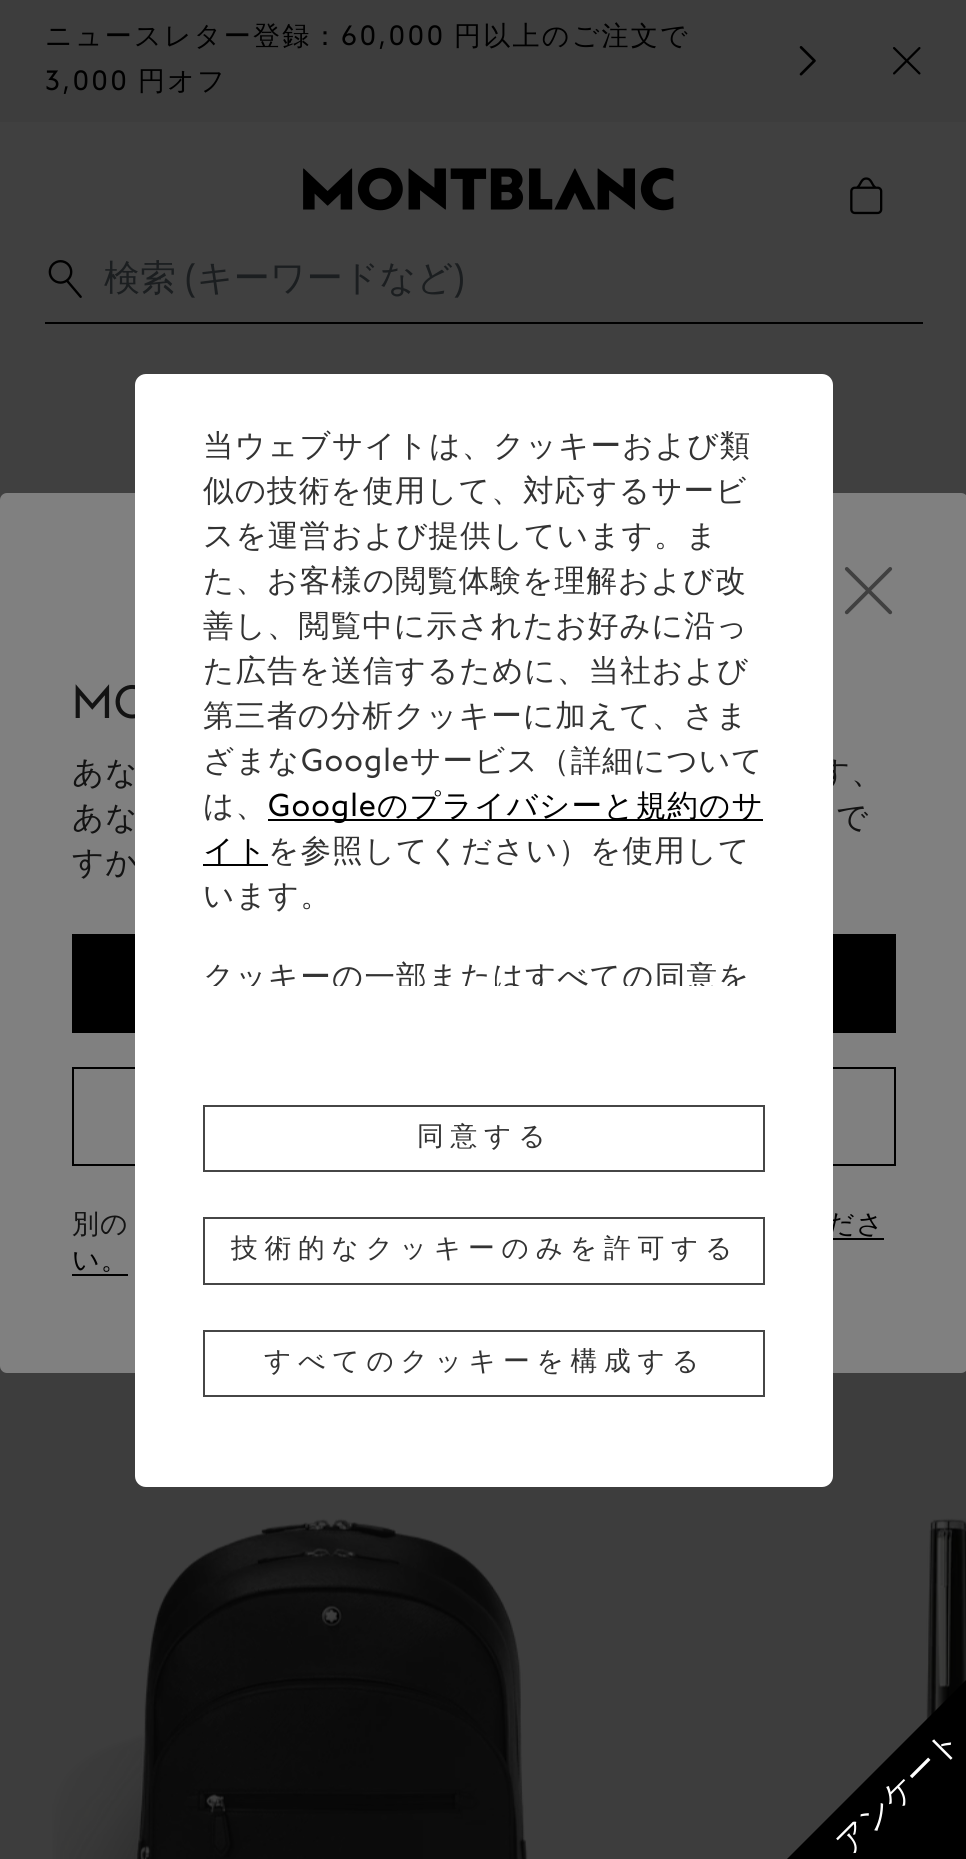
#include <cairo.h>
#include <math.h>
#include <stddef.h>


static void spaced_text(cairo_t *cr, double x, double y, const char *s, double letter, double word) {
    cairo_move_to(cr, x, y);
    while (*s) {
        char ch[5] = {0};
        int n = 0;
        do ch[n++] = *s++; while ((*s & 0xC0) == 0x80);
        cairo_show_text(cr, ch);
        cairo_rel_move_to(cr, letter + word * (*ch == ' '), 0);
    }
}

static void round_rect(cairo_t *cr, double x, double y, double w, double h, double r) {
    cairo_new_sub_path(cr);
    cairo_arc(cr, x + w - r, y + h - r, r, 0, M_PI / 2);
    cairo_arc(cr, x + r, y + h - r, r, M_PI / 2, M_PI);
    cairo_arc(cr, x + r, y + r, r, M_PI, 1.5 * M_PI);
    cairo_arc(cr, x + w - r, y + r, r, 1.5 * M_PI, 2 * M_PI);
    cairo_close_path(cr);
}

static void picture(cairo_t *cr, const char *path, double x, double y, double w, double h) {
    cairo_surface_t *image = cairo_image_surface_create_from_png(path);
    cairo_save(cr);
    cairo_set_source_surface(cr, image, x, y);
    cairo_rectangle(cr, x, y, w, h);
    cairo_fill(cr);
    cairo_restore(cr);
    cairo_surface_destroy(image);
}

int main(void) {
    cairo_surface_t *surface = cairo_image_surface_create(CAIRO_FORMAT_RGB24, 966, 1859);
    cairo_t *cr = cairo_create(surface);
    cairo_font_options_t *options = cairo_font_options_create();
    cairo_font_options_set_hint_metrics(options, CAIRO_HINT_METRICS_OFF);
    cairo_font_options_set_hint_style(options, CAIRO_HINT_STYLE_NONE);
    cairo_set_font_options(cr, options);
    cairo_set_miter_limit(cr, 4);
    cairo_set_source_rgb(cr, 0.251, 0.251, 0.251);
    cairo_paint(cr);
    cairo_set_source_rgb(cr, 0.239, 0.239, 0.239);
    cairo_rectangle(cr, 0, 0, 966, 122);
    cairo_fill(cr);
    cairo_select_font_face(cr, "WenQuanYi Zen Hei Medium", CAIRO_FONT_SLANT_NORMAL, CAIRO_FONT_WEIGHT_NORMAL);
    cairo_set_font_size(cr, 27);
    cairo_set_source_rgb(cr, 0, 0, 0);
    spaced_text(cr, 45, 45, "ニュースレター登録：", 2.25, 0);
    cairo_select_font_face(cr, "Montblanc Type", CAIRO_FONT_SLANT_NORMAL, CAIRO_FONT_WEIGHT_NORMAL);
    spaced_text(cr, 341, 45, "60,000", 2.25, 0);
    cairo_select_font_face(cr, "WenQuanYi Zen Hei Medium", CAIRO_FONT_SLANT_NORMAL, CAIRO_FONT_WEIGHT_NORMAL);
    spaced_text(cr, 454, 45, "円以上のご注文で", 2.25, 0);
    cairo_select_font_face(cr, "Montblanc Type", CAIRO_FONT_SLANT_NORMAL, CAIRO_FONT_WEIGHT_NORMAL);
    spaced_text(cr, 45, 90, "3,000", 2.25, 0);
    cairo_select_font_face(cr, "WenQuanYi Zen Hei Medium", CAIRO_FONT_SLANT_NORMAL, CAIRO_FONT_WEIGHT_NORMAL);
    spaced_text(cr, 138, 90, "円オフ", 2.25, 0);
    picture(cr, "img1.png", 799, 46, 17, 30);
    picture(cr, "img2.png", 893, 47, 28, 28);
    picture(cr, "img3.png", 303, 167, 371, 44);
    picture(cr, "img4.png", 850, 177, 33, 38);
    picture(cr, "img5.png", 48, 260, 34, 38);
    cairo_rectangle(cr, 45, 322, 878, 2);
    cairo_fill(cr);
    cairo_set_font_size(cr, 36);
    cairo_set_source_rgb(cr, 0.106, 0.118, 0.125);
    cairo_move_to(cr, 104, 290);
    cairo_show_text(cr, "検索");
    cairo_select_font_face(cr, "Montblanc Type", CAIRO_FONT_SLANT_NORMAL, CAIRO_FONT_WEIGHT_NORMAL);
    cairo_move_to(cr, 184, 290);
    cairo_show_text(cr, "(");
    cairo_select_font_face(cr, "WenQuanYi Zen Hei Medium", CAIRO_FONT_SLANT_NORMAL, CAIRO_FONT_WEIGHT_NORMAL);
    cairo_move_to(cr, 197, 290);
    cairo_show_text(cr, "キーワードなど");
    cairo_select_font_face(cr, "Montblanc Type", CAIRO_FONT_SLANT_NORMAL, CAIRO_FONT_WEIGHT_NORMAL);
    cairo_move_to(cr, 453, 290);
    cairo_show_text(cr, ")");
    cairo_set_source_rgb(cr, 0.239, 0.239, 0.239);
    cairo_rectangle(cr, 0, 1366, 966, 493);
    cairo_fill(cr);
    cairo_set_source_rgb(cr, 0.502, 0.502, 0.502);
    round_rect(cr, 0, 493, 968, 880, 7);
    cairo_fill(cr);
    picture(cr, "img6.png", 844, 567, 49, 48);
    cairo_set_font_size(cr, 45);
    cairo_set_source_rgb(cr, 0.078, 0.078, 0.078);
    spaced_text(cr, 72, 718, "MO", 1, 0);
    cairo_select_font_face(cr, "WenQuanYi Zen Hei Medium", CAIRO_FONT_SLANT_NORMAL, CAIRO_FONT_WEIGHT_NORMAL);
    cairo_set_font_size(cr, 31.5);
    spaced_text(cr, 72, 783, "あな", 1.1, 0);
    spaced_text(cr, 818, 783, "す、", 1.1, 0);
    spaced_text(cr, 72, 828, "あな", 1.1, 0);
    spaced_text(cr, 836, 828, "で", 1.1, 0);
    spaced_text(cr, 72, 873, "すか", 1.1, 0);
    cairo_set_source_rgb(cr, 0, 0, 0);
    cairo_rectangle(cr, 72, 934, 824, 99);
    cairo_fill(cr);
    cairo_rectangle(cr, 73, 1068, 822, 97);
    cairo_stroke(cr);
    cairo_set_font_size(cr, 27);
    cairo_set_source_rgb(cr, 0.078, 0.078, 0.078);
    spaced_text(cr, 72, 1233, "別の", 1, 0);
    cairo_set_source_rgb(cr, 0, 0, 0);
    spaced_text(cr, 827, 1233, "ださ", 1, 0);
    cairo_rectangle(cr, 833, 1238, 51, 2);
    cairo_fill(cr);
    spaced_text(cr, 72, 1269, "い。", 1, 0);
    cairo_rectangle(cr, 72, 1274, 56, 2);
    cairo_fill(cr);
    picture(cr, "img7.png", 52, 1518, 476, 341);
    picture(cr, "img8.png", 926, 1518, 40, 202);
    cairo_set_source_rgb(cr, 1, 1, 1);
    round_rect(cr, 135, 374, 698, 1113, 11);
    cairo_fill(cr);
    cairo_set_font_size(cr, 30.6);
    cairo_set_source_rgb(cr, 0.2, 0.2, 0.2);
    spaced_text(cr, 203, 456, "当ウェブサイトは、クッキーおよび類", 1.1, 0);
    spaced_text(cr, 203, 501, "似の技術を使用して、対応するサービ", 1.1, 0);
    spaced_text(cr, 203, 546, "スを運営および提供しています。ま", 1.1, 0);
    spaced_text(cr, 203, 591, "た、お客様の閲覧体験を理解および改", 1.1, 0);
    spaced_text(cr, 203, 636, "善し、閲覧中に示されたお好みに沿っ", 1.1, 0);
    spaced_text(cr, 203, 681, "た広告を送信するために、当社および", 1.1, 0);
    spaced_text(cr, 203, 726, "第三者の分析クッキーに加えて、さま", 1.1, 0);
    spaced_text(cr, 203, 771, "ざまな", 1.1, 0);
    cairo_select_font_face(cr, "Montblanc Type", CAIRO_FONT_SLANT_NORMAL, CAIRO_FONT_WEIGHT_NORMAL);
    spaced_text(cr, 301, 771, "Google", 1.1, 0);
    cairo_select_font_face(cr, "WenQuanYi Zen Hei Medium", CAIRO_FONT_SLANT_NORMAL, CAIRO_FONT_WEIGHT_NORMAL);
    spaced_text(cr, 410, 771, "サービス（詳細について", 1.1, 0);
    spaced_text(cr, 203, 816, "は、", 1.1, 0);
    cairo_set_source_rgb(cr, 0, 0, 0);
    cairo_rectangle(cr, 268, 819, 495, 2);
    cairo_fill(cr);
    cairo_select_font_face(cr, "Montblanc Type", CAIRO_FONT_SLANT_NORMAL, CAIRO_FONT_WEIGHT_NORMAL);
    spaced_text(cr, 268, 816, "Google", 1.1, 0);
    cairo_select_font_face(cr, "WenQuanYi Zen Hei Medium", CAIRO_FONT_SLANT_NORMAL, CAIRO_FONT_WEIGHT_NORMAL);
    spaced_text(cr, 377, 816, "のプライバシーと規約のサ", 1.1, 0);
    cairo_rectangle(cr, 203, 864, 65, 2);
    cairo_fill(cr);
    spaced_text(cr, 203, 861, "イト", 1.1, 0);
    cairo_set_source_rgb(cr, 0.2, 0.2, 0.2);
    spaced_text(cr, 268, 861, "を参照してください）を使用して", 1.1, 0);
    spaced_text(cr, 203, 906, "います。", 1.1, 0);
    cairo_save(cr);
    cairo_rectangle(cr, 203, 428, 562, 558);
    cairo_clip(cr);
    spaced_text(cr, 203, 987, "クッキーの一部またはすべての同意を", 1.1, 0);
    cairo_restore(cr);
    cairo_rectangle(cr, 204, 1106, 560, 65);
    cairo_set_source_rgb(cr, 0.275, 0.275, 0.275);
    cairo_stroke(cr);
    cairo_set_font_size(cr, 26.75);
    cairo_set_source_rgb(cr, 0.2, 0.2, 0.2);
    spaced_text(cr, 417, 1145, "同意する", 6.75, 0);
    cairo_rectangle(cr, 204, 1218, 560, 66);
    cairo_set_source_rgb(cr, 0.275, 0.275, 0.275);
    cairo_stroke(cr);
    cairo_set_source_rgb(cr, 0.2, 0.2, 0.2);
    spaced_text(cr, 231, 1257, "技術的なクッキーのみを許可する", 6.75, 0);
    cairo_rectangle(cr, 204, 1331, 560, 65);
    cairo_set_source_rgb(cr, 0.275, 0.275, 0.275);
    cairo_stroke(cr);
    cairo_set_source_rgb(cr, 0.2, 0.2, 0.2);
    spaced_text(cr, 264, 1370, "すべてのクッキーを構成する", 6.75, 0);
    cairo_set_source_rgb(cr, 0, 0, 0);
    cairo_new_path(cr);
    cairo_move_to(cr, 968, 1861);
    cairo_line_to(cr, 785, 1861);
    cairo_line_to(cr, 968, 1678);
    cairo_close_path(cr);
    cairo_fill(cr);
    cairo_set_font_size(cr, 31.5);
    cairo_set_source_rgb(cr, 1, 1, 1);
    cairo_save(cr);
    cairo_translate(cr, 849, 1856);
    cairo_rotate(cr, -45 * M_PI / 180);
    cairo_move_to(cr, 0, 0);
    cairo_show_text(cr, "アンケート");
    cairo_restore(cr);
    cairo_surface_write_to_png(surface, "page.png");
    cairo_font_options_destroy(options);
    cairo_destroy(cr);
    cairo_surface_destroy(surface);
    return 0;
}
